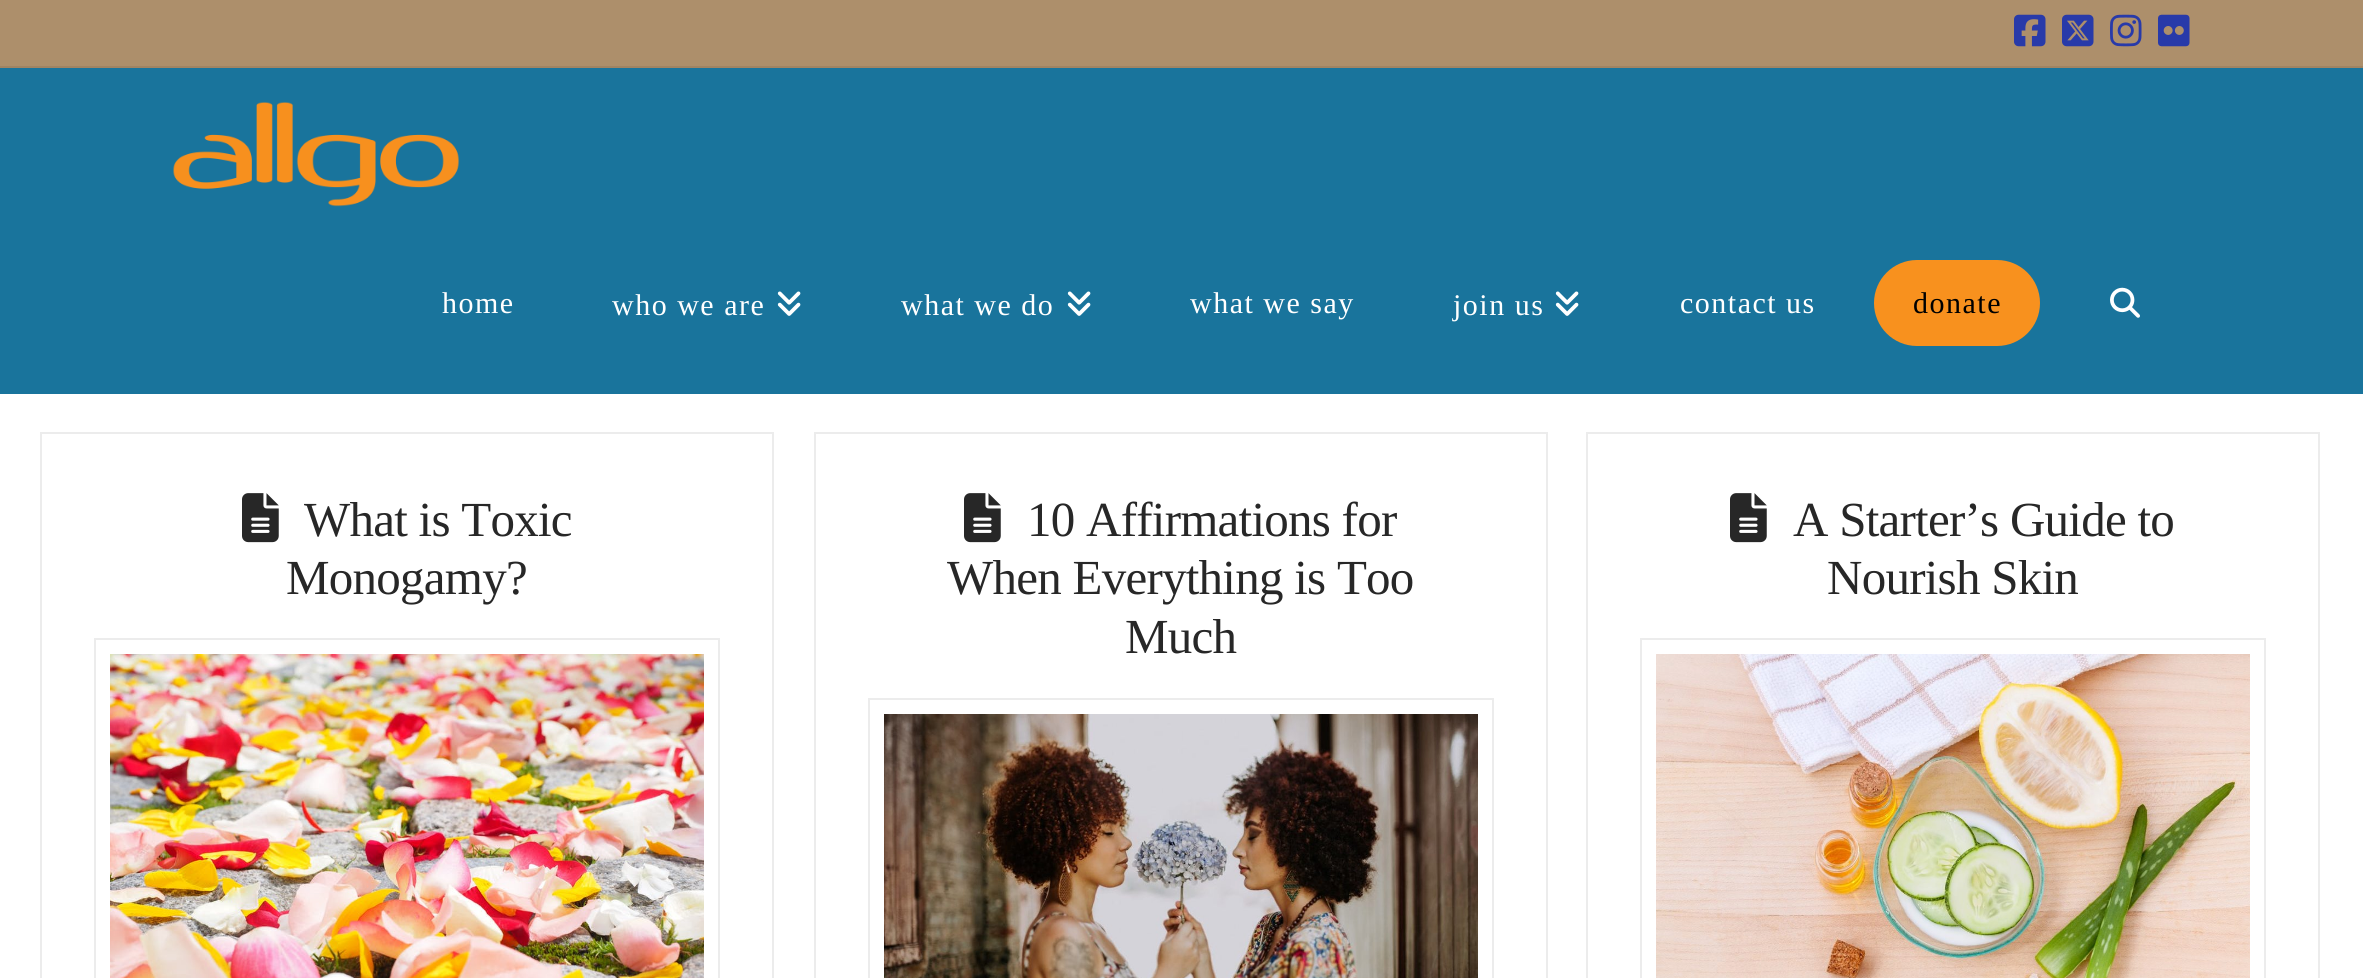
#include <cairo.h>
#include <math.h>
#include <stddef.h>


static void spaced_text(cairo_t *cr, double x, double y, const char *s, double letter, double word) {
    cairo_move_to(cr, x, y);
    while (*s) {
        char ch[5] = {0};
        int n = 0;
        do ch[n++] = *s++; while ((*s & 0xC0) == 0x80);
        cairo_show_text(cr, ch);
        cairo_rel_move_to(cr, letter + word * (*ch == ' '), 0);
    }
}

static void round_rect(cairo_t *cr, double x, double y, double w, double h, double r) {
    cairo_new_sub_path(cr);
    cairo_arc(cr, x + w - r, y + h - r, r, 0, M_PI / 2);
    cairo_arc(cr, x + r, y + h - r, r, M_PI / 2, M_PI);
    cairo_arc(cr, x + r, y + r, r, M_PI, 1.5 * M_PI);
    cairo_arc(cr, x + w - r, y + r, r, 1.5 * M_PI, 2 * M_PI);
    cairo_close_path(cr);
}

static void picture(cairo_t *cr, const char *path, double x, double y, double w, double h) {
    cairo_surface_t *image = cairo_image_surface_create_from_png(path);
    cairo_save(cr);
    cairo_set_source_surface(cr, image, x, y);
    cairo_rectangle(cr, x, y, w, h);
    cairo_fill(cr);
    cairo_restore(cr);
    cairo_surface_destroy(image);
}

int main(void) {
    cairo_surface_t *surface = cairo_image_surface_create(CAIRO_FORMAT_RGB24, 2363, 978);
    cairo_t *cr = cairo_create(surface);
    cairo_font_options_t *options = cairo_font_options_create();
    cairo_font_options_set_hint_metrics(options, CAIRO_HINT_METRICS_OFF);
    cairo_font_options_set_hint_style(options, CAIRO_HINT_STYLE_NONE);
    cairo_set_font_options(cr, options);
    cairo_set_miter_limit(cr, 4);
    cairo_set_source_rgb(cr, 1, 1, 1);
    cairo_paint(cr);
    cairo_set_source_rgb(cr, 0.678, 0.561, 0.42);
    cairo_rectangle(cr, 0, 0, 2363, 66);
    cairo_fill(cr);
    cairo_set_source_rgb(cr, 0.627, 0.518, 0.388);
    cairo_rectangle(cr, 0, 66, 2363, 2);
    cairo_fill(cr);
    picture(cr, "img1.png", 2014, 14, 32, 33);
    picture(cr, "img2.png", 2062, 14, 32, 33);
    picture(cr, "img3.png", 2110, 14, 32, 33);
    picture(cr, "img4.png", 2158, 14, 32, 33);
    cairo_set_source_rgb(cr, 0.098, 0.455, 0.612);
    cairo_rectangle(cr, 0, 68, 2363, 326);
    cairo_fill(cr);
    picture(cr, "img5.png", 173, 102, 287, 105);
    cairo_select_font_face(cr, "Liberation Serif", CAIRO_FONT_SLANT_NORMAL, CAIRO_FONT_WEIGHT_NORMAL);
    cairo_set_font_size(cr, 30);
    cairo_set_source_rgb(cr, 1, 1, 1);
    spaced_text(cr, 442, 313, "home", 1.5, 0);
    spaced_text(cr, 612, 315, "who we are", 1.5, 0);
    picture(cr, "img6.png", 777, 291, 24, 25);
    spaced_text(cr, 901, 315, "what we do", 1.5, 0);
    picture(cr, "img6.png", 1067, 291, 24, 25);
    spaced_text(cr, 1190, 313, "what we say", 1.5, 0);
    spaced_text(cr, 1453, 315, "join us", 1.5, 0);
    picture(cr, "img6.png", 1555, 291, 24, 25);
    spaced_text(cr, 1680, 313, "contact us", 1.5, 0);
    cairo_set_source_rgb(cr, 0.969, 0.569, 0.118);
    round_rect(cr, 1874, 260, 166, 86, 43);
    cairo_fill(cr);
    cairo_set_source_rgb(cr, 0, 0, 0);
    spaced_text(cr, 1913, 313, "donate", 1.5, 0);
    picture(cr, "img7.png", 2110, 287, 30, 31);
    cairo_rectangle(cr, 41, 433, 732, 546);
    cairo_set_source_rgb(cr, 0.925, 0.925, 0.925);
    cairo_stroke(cr);
    picture(cr, "img8.png", 242, 493, 37, 50);
    cairo_set_font_size(cr, 49);
    cairo_set_source_rgb(cr, 0.153, 0.153, 0.153);
    spaced_text(cr, 304, 536, "What is Toxic", -0.75, 0);
    spaced_text(cr, 286, 594, "Monogamy?", -0.75, 0);
    cairo_rectangle(cr, 95, 639, 624, 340);
    cairo_set_source_rgb(cr, 0.925, 0.925, 0.925);
    cairo_stroke(cr);
    picture(cr, "img9.png", 110, 654, 594, 324);
    cairo_rectangle(cr, 815, 433, 732, 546);
    cairo_stroke(cr);
    picture(cr, "img8.png", 964, 493, 37, 50);
    cairo_set_source_rgb(cr, 0.153, 0.153, 0.153);
    spaced_text(cr, 1027, 536, "10 Affirmations for", -0.75, 0);
    spaced_text(cr, 947, 594, "When Everything is Too", -0.75, 0);
    spaced_text(cr, 1125, 653, "Much", -0.75, 0);
    cairo_rectangle(cr, 869, 699, 624, 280);
    cairo_set_source_rgb(cr, 0.925, 0.925, 0.925);
    cairo_stroke(cr);
    picture(cr, "img10.png", 884, 714, 594, 264);
    cairo_rectangle(cr, 1587, 433, 732, 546);
    cairo_stroke(cr);
    picture(cr, "img8.png", 1730, 493, 37, 50);
    cairo_set_source_rgb(cr, 0.153, 0.153, 0.153);
    spaced_text(cr, 1793, 536, "A Starter’s Guide to", -0.75, 0);
    spaced_text(cr, 1827, 594, "Nourish Skin", -0.75, 0);
    cairo_rectangle(cr, 1641, 639, 624, 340);
    cairo_set_source_rgb(cr, 0.925, 0.925, 0.925);
    cairo_stroke(cr);
    picture(cr, "img11.png", 1656, 654, 594, 324);
    cairo_surface_write_to_png(surface, "page.png");
    cairo_font_options_destroy(options);
    cairo_destroy(cr);
    cairo_surface_destroy(surface);
    return 0;
}
